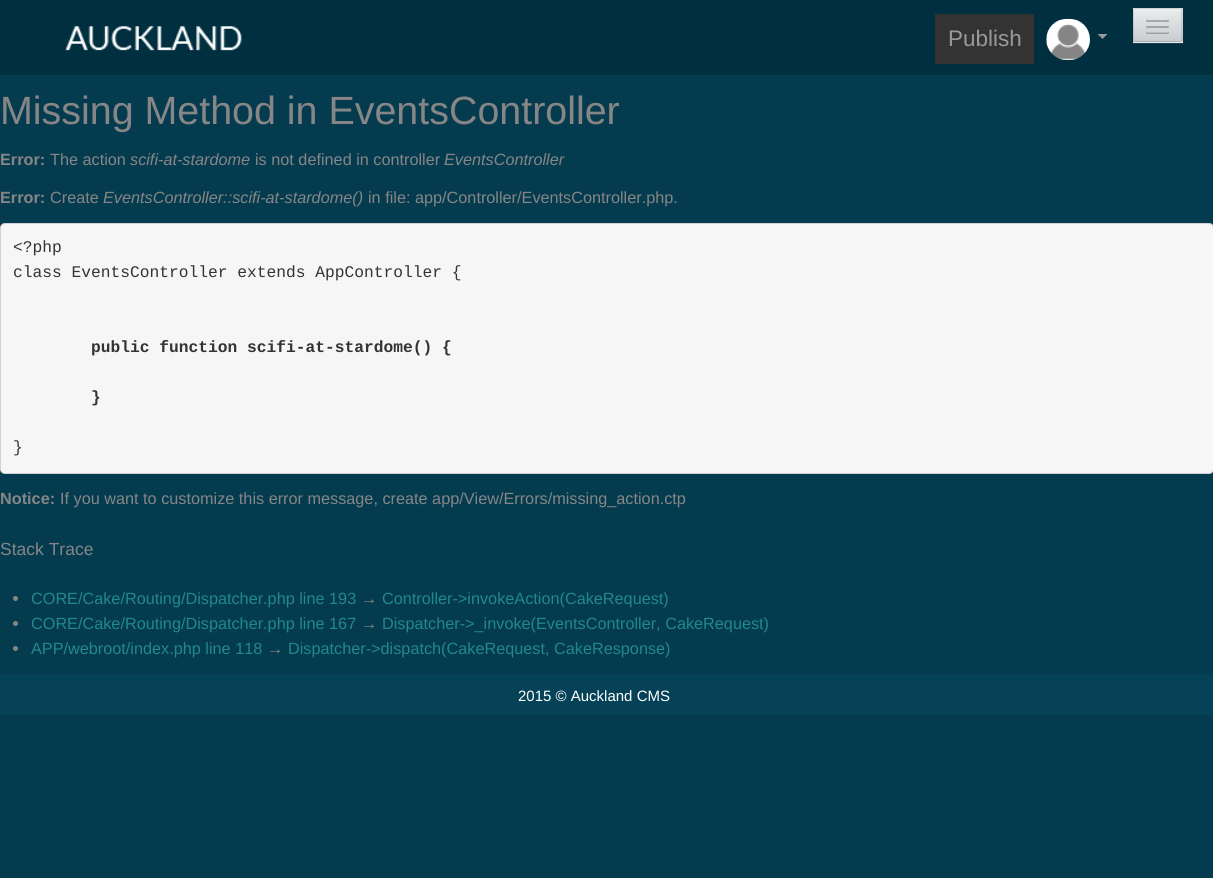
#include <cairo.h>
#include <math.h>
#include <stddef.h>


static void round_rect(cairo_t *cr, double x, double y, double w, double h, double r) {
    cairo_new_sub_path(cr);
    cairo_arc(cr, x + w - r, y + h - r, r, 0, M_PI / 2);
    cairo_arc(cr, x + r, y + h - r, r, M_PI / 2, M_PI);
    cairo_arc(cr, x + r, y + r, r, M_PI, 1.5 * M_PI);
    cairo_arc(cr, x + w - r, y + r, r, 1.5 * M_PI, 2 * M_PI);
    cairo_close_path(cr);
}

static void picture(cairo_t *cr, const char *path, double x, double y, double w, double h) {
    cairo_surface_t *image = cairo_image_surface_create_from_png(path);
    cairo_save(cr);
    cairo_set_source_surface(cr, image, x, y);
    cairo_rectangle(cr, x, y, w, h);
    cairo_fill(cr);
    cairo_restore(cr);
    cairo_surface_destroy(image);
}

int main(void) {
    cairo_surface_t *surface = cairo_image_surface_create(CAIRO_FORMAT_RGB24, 1213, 878);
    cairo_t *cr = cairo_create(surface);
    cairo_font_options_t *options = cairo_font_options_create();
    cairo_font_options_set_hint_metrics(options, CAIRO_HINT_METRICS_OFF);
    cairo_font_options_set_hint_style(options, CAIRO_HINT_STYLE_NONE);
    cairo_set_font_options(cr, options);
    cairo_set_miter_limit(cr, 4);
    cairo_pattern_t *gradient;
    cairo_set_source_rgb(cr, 0.016, 0.231, 0.31);
    cairo_paint(cr);
    cairo_set_source_rgb(cr, 0, 0.184, 0.247);
    cairo_rectangle(cr, 0, 0, 1213, 75);
    cairo_fill(cr);
    picture(cr, "img1.png", 65, 26, 177, 25);
    cairo_set_source_rgb(cr, 0.2, 0.2, 0.2);
    cairo_rectangle(cr, 935, 14, 99, 50);
    cairo_fill(cr);
    cairo_select_font_face(cr, "Liberation Sans", CAIRO_FONT_SLANT_NORMAL, CAIRO_FONT_WEIGHT_NORMAL);
    cairo_set_font_size(cr, 22.5);
    cairo_set_source_rgb(cr, 0.6, 0.6, 0.6);
    cairo_move_to(cr, 948, 46);
    cairo_show_text(cr, "Publish");
    picture(cr, "img2.png", 1046, 18, 44, 42);
    cairo_new_path(cr);
    cairo_move_to(cr, 1097.5, 34);
    cairo_line_to(cr, 1107.5, 34);
    cairo_line_to(cr, 1102.5, 39);
    cairo_close_path(cr);
    cairo_fill(cr);
    cairo_set_source_rgb(cr, 0.075, 0.247, 0.302);
    cairo_new_path(cr);
    cairo_move_to(cr, 1133, 42);
    cairo_line_to(cr, 1133, 44);
    cairo_line_to(cr, 1183, 44);
    cairo_line_to(cr, 1183, 9);
    cairo_line_to(cr, 1182, 9);
    cairo_line_to(cr, 1182, 42);
    cairo_close_path(cr);
    cairo_fill(cr);
    cairo_set_source_rgb(cr, 0.914, 0.922, 0.925);
    cairo_rectangle(cr, 1133, 8, 50, 35);
    cairo_fill(cr);
    gradient = cairo_pattern_create_linear(1158, 9, 1158, 41);
    cairo_pattern_add_color_stop_rgba(gradient, 0, 0.914, 0.922, 0.925, 1);
    cairo_pattern_add_color_stop_rgba(gradient, 1, 0.792, 0.808, 0.82, 1);
    cairo_set_source(cr, gradient);
    cairo_pattern_destroy(gradient);
    cairo_rectangle(cr, 1133, 12, 50, 29);
    cairo_fill(cr);
    cairo_set_source_rgb(cr, 0.824, 0.831, 0.831);
    cairo_new_path(cr);
    cairo_move_to(cr, 1132, 8);
    cairo_line_to(cr, 1182, 8);
    cairo_line_to(cr, 1181, 9);
    cairo_line_to(cr, 1134, 9);
    cairo_close_path(cr);
    cairo_fill(cr);
    cairo_set_source_rgba(cr, 0, 0, 0, 0.1);
    cairo_new_path(cr);
    cairo_move_to(cr, 1182.5, 7.5);
    cairo_line_to(cr, 1182.5, 42.5);
    cairo_line_to(cr, 1181, 41);
    cairo_line_to(cr, 1181, 9);
    cairo_close_path(cr);
    cairo_fill(cr);
    cairo_set_source_rgba(cr, 0, 0, 0, 0.25);
    cairo_new_path(cr);
    cairo_move_to(cr, 1182, 42);
    cairo_line_to(cr, 1132, 42);
    cairo_line_to(cr, 1134, 41);
    cairo_line_to(cr, 1181, 41);
    cairo_close_path(cr);
    cairo_fill(cr);
    cairo_set_source_rgba(cr, 0, 0, 0, 0.1);
    cairo_new_path(cr);
    cairo_move_to(cr, 1132.5, 42.5);
    cairo_line_to(cr, 1132.5, 7.5);
    cairo_line_to(cr, 1134, 9);
    cairo_line_to(cr, 1134, 41);
    cairo_close_path(cr);
    cairo_fill(cr);
    cairo_set_source_rgb(cr, 0.651, 0.659, 0.663);
    cairo_new_path(cr);
    cairo_move_to(cr, 1146.5, 19.5);
    cairo_line_to(cr, 1146, 21);
    cairo_curve_to(cr, 1146.5, 23, 1150, 22, 1151, 22);
    cairo_line_to(cr, 1164, 22);
    cairo_curve_to(cr, 1165, 22, 1168.5, 23, 1169, 21);
    cairo_line_to(cr, 1168.5, 19.5);
    cairo_line_to(cr, 1167.5, 20);
    cairo_line_to(cr, 1147.5, 20);
    cairo_close_path(cr);
    cairo_fill(cr);
    cairo_set_source_rgb(cr, 0.635, 0.643, 0.647);
    cairo_new_path(cr);
    cairo_move_to(cr, 1146.5, 25.5);
    cairo_line_to(cr, 1146, 27);
    cairo_curve_to(cr, 1146.5, 29, 1150, 28, 1151, 28);
    cairo_line_to(cr, 1164, 28);
    cairo_curve_to(cr, 1165, 28, 1168.5, 29, 1169, 27);
    cairo_line_to(cr, 1168.5, 25.5);
    cairo_curve_to(cr, 1168.5, 26, 1168, 26, 1167.5, 26);
    cairo_line_to(cr, 1147.5, 26);
    cairo_curve_to(cr, 1147, 26, 1146.5, 26, 1146.5, 25.5);
    cairo_close_path(cr);
    cairo_fill(cr);
    cairo_set_source_rgb(cr, 0.616, 0.627, 0.631);
    cairo_new_path(cr);
    cairo_move_to(cr, 1146.5, 31.5);
    cairo_curve_to(cr, 1144, 34.5, 1150.5, 34, 1151, 34);
    cairo_line_to(cr, 1164, 34);
    cairo_curve_to(cr, 1164.5, 34, 1171, 34.5, 1168.5, 31.5);
    cairo_curve_to(cr, 1168.5, 32, 1168, 32.5, 1167.5, 32.5);
    cairo_line_to(cr, 1147.5, 32.5);
    cairo_curve_to(cr, 1147, 32.5, 1146.5, 32, 1146.5, 31.5);
    cairo_close_path(cr);
    cairo_fill(cr);
    cairo_set_font_size(cr, 39.4);
    cairo_set_source_rgb(cr, 0.525, 0.525, 0.525);
    cairo_move_to(cr, 0, 124);
    cairo_show_text(cr, "Missing Method in EventsController");
    cairo_select_font_face(cr, "Liberation Sans", CAIRO_FONT_SLANT_NORMAL, CAIRO_FONT_WEIGHT_BOLD);
    cairo_set_font_size(cr, 16.25);
    cairo_move_to(cr, 0, 165);
    cairo_show_text(cr, "Error:");
    cairo_select_font_face(cr, "Liberation Sans", CAIRO_FONT_SLANT_NORMAL, CAIRO_FONT_WEIGHT_NORMAL);
    cairo_move_to(cr, 50, 165);
    cairo_show_text(cr, "The action");
    cairo_select_font_face(cr, "Liberation Sans", CAIRO_FONT_SLANT_ITALIC, CAIRO_FONT_WEIGHT_NORMAL);
    cairo_move_to(cr, 130, 165);
    cairo_show_text(cr, "scifi-at-stardome");
    cairo_select_font_face(cr, "Liberation Sans", CAIRO_FONT_SLANT_NORMAL, CAIRO_FONT_WEIGHT_NORMAL);
    cairo_move_to(cr, 255, 165);
    cairo_show_text(cr, "is not defined in controller");
    cairo_select_font_face(cr, "Liberation Sans", CAIRO_FONT_SLANT_ITALIC, CAIRO_FONT_WEIGHT_NORMAL);
    cairo_move_to(cr, 444, 165);
    cairo_show_text(cr, "EventsController");
    cairo_select_font_face(cr, "Liberation Sans", CAIRO_FONT_SLANT_NORMAL, CAIRO_FONT_WEIGHT_BOLD);
    cairo_move_to(cr, 0, 203);
    cairo_show_text(cr, "Error:");
    cairo_select_font_face(cr, "Liberation Sans", CAIRO_FONT_SLANT_NORMAL, CAIRO_FONT_WEIGHT_NORMAL);
    cairo_move_to(cr, 50, 203);
    cairo_show_text(cr, "Create");
    cairo_select_font_face(cr, "Liberation Sans", CAIRO_FONT_SLANT_ITALIC, CAIRO_FONT_WEIGHT_NORMAL);
    cairo_move_to(cr, 103, 203);
    cairo_show_text(cr, "EventsController::scifi-at-stardome()");
    cairo_select_font_face(cr, "Liberation Sans", CAIRO_FONT_SLANT_NORMAL, CAIRO_FONT_WEIGHT_NORMAL);
    cairo_move_to(cr, 368, 203);
    cairo_show_text(cr, "in file: app/Controller/EventsController.php.");
    cairo_set_source_rgb(cr, 0.961, 0.961, 0.961);
    round_rect(cr, 0, 223, 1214, 251, 5);
    cairo_fill(cr);
    round_rect(cr, 0.5, 223.5, 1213, 250, 4.5);
    cairo_set_source_rgba(cr, 0, 0, 0, 0.15);
    cairo_set_line_width(cr, 1);
    cairo_stroke(cr);
    cairo_select_font_face(cr, "Liberation Mono", CAIRO_FONT_SLANT_NORMAL, CAIRO_FONT_WEIGHT_NORMAL);
    cairo_set_source_rgb(cr, 0.2, 0.2, 0.2);
    cairo_move_to(cr, 13, 252);
    cairo_show_text(cr, "<?php");
    cairo_move_to(cr, 13, 277);
    cairo_show_text(cr, "class EventsController extends AppController {");
    cairo_select_font_face(cr, "Liberation Mono", CAIRO_FONT_SLANT_NORMAL, CAIRO_FONT_WEIGHT_BOLD);
    cairo_move_to(cr, 91, 352);
    cairo_show_text(cr, "public function scifi-at-stardome() {");
    cairo_move_to(cr, 91, 402);
    cairo_show_text(cr, "}");
    cairo_select_font_face(cr, "Liberation Mono", CAIRO_FONT_SLANT_NORMAL, CAIRO_FONT_WEIGHT_NORMAL);
    cairo_move_to(cr, 13, 452);
    cairo_show_text(cr, "}");
    cairo_select_font_face(cr, "Liberation Sans", CAIRO_FONT_SLANT_NORMAL, CAIRO_FONT_WEIGHT_BOLD);
    cairo_set_source_rgb(cr, 0.525, 0.525, 0.525);
    cairo_move_to(cr, 0, 504);
    cairo_show_text(cr, "Notice:");
    cairo_select_font_face(cr, "Liberation Sans", CAIRO_FONT_SLANT_NORMAL, CAIRO_FONT_WEIGHT_NORMAL);
    cairo_move_to(cr, 60, 504);
    cairo_show_text(cr, "If you want to customize this error message, create app/View/Errors/missing_action.ctp");
    cairo_set_font_size(cr, 17.5);
    cairo_move_to(cr, 0, 555);
    cairo_show_text(cr, "Stack Trace");
    cairo_new_path(cr);
    cairo_arc(cr, 15.5, 598.5, 2.5, 0, 2 * M_PI);
    cairo_fill(cr);
    cairo_set_font_size(cr, 16.25);
    cairo_set_source_rgb(cr, 0.133, 0.529, 0.557);
    cairo_move_to(cr, 31, 604);
    cairo_show_text(cr, "CORE/Cake/Routing/Dispatcher.php line 193");
    cairo_move_to(cr, 382, 604);
    cairo_show_text(cr, "Controller->invokeAction(CakeRequest)");
    cairo_set_source_rgb(cr, 0.525, 0.525, 0.525);
    cairo_move_to(cr, 361, 604);
    cairo_show_text(cr, "→");
    cairo_new_path(cr);
    cairo_arc(cr, 15.5, 623.5, 2.5, 0, 2 * M_PI);
    cairo_fill(cr);
    cairo_set_source_rgb(cr, 0.133, 0.529, 0.557);
    cairo_move_to(cr, 31, 629);
    cairo_show_text(cr, "CORE/Cake/Routing/Dispatcher.php line 167");
    cairo_move_to(cr, 382, 629);
    cairo_show_text(cr, "Dispatcher->_invoke(EventsController, CakeRequest)");
    cairo_set_source_rgb(cr, 0.525, 0.525, 0.525);
    cairo_move_to(cr, 361, 629);
    cairo_show_text(cr, "→");
    cairo_new_path(cr);
    cairo_arc(cr, 15.5, 648.5, 2.5, 0, 2 * M_PI);
    cairo_fill(cr);
    cairo_set_source_rgb(cr, 0.133, 0.529, 0.557);
    cairo_move_to(cr, 31, 654);
    cairo_show_text(cr, "APP/webroot/index.php line 118");
    cairo_move_to(cr, 288, 654);
    cairo_show_text(cr, "Dispatcher->dispatch(CakeRequest, CakeResponse)");
    cairo_set_source_rgb(cr, 0.525, 0.525, 0.525);
    cairo_move_to(cr, 267, 654);
    cairo_show_text(cr, "→");
    cairo_set_source_rgb(cr, 0.02, 0.259, 0.341);
    cairo_rectangle(cr, 0, 674, 1213, 41);
    cairo_fill(cr);
    cairo_set_font_size(cr, 15);
    cairo_set_source_rgb(cr, 1, 1, 1);
    cairo_move_to(cr, 518, 701);
    cairo_show_text(cr, "2015 © Auckland CMS");
    cairo_surface_write_to_png(surface, "page.png");
    cairo_font_options_destroy(options);
    cairo_destroy(cr);
    cairo_surface_destroy(surface);
    return 0;
}
